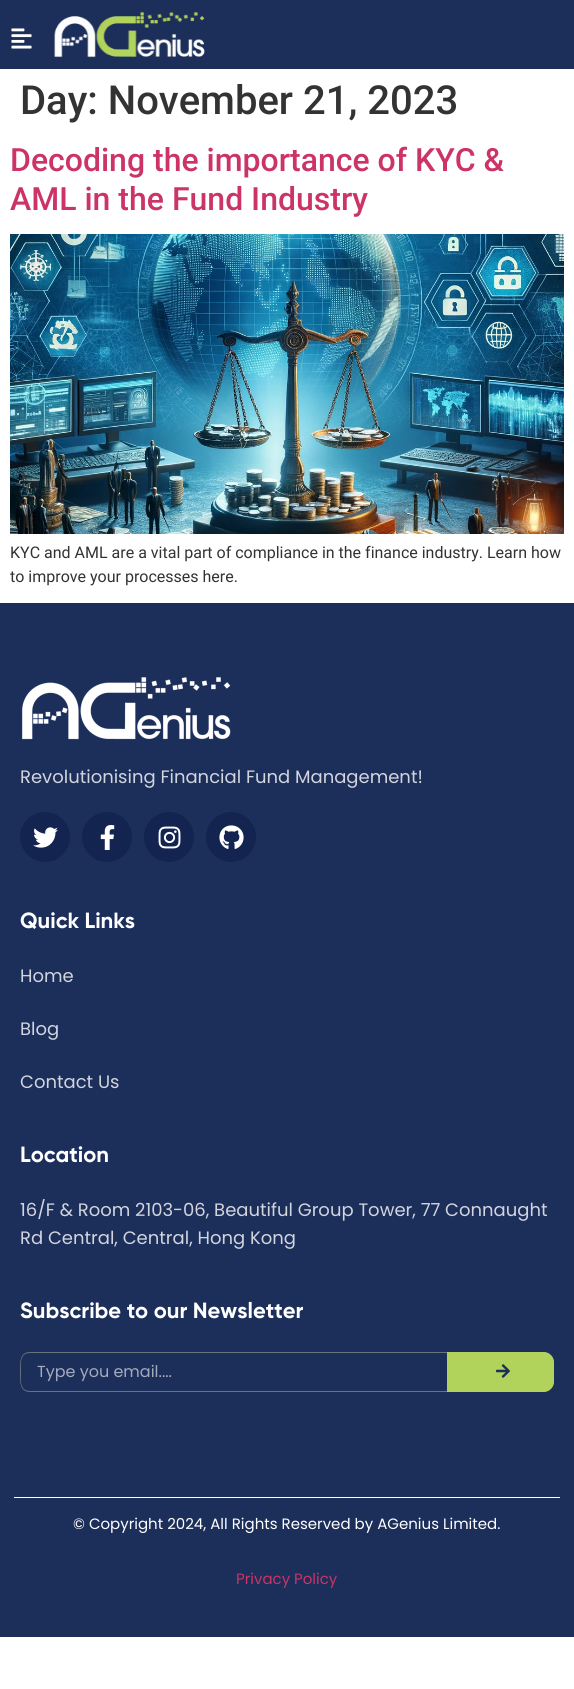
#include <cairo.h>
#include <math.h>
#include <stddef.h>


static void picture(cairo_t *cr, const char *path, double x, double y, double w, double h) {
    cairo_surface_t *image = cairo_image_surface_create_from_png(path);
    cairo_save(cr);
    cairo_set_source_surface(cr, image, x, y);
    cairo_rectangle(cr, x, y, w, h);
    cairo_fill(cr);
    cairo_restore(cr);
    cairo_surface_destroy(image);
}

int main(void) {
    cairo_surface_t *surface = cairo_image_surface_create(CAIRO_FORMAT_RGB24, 574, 1689);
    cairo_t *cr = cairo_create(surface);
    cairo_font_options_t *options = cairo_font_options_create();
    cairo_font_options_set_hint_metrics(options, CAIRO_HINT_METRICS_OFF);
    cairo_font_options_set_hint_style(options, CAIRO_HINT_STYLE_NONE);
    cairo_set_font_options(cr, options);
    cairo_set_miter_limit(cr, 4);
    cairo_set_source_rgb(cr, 1, 1, 1);
    cairo_paint(cr);
    cairo_set_source_rgb(cr, 0.11, 0.18, 0.353);
    cairo_rectangle(cr, 0, 0, 574, 69);
    cairo_fill(cr);
    picture(cr, "img1.png", 11, 28, 21, 21);
    picture(cr, "img2.png", 54, 12, 151, 46);
    cairo_select_font_face(cr, "Roboto Medium", CAIRO_FONT_SLANT_NORMAL, CAIRO_FONT_WEIGHT_NORMAL);
    cairo_set_font_size(cr, 40);
    cairo_set_source_rgb(cr, 0.2, 0.2, 0.2);
    cairo_move_to(cr, 20, 114);
    cairo_show_text(cr, "Day: November 21, 2023");
    cairo_set_font_size(cr, 32);
    cairo_set_source_rgb(cr, 0.8, 0.2, 0.4);
    cairo_move_to(cr, 10, 171);
    cairo_show_text(cr, "Decoding the importance of KYC &");
    cairo_move_to(cr, 10, 210);
    cairo_show_text(cr, "AML in the Fund Industry");
    picture(cr, "img3.png", 10, 234, 554, 300);
    cairo_select_font_face(cr, "Roboto", CAIRO_FONT_SLANT_NORMAL, CAIRO_FONT_WEIGHT_NORMAL);
    cairo_set_font_size(cr, 16);
    cairo_set_source_rgb(cr, 0.2, 0.2, 0.2);
    cairo_move_to(cr, 10, 558);
    cairo_show_text(cr, "KYC and AML are a vital part of compliance in the finance industry. Learn how");
    cairo_move_to(cr, 10, 582);
    cairo_show_text(cr, "to improve your processes here.");
    cairo_set_source_rgb(cr, 0.11, 0.18, 0.353);
    cairo_rectangle(cr, 0, 603, 574, 1034);
    cairo_fill(cr);
    picture(cr, "img4.png", 22, 677, 209, 63);
    cairo_select_font_face(cr, "Poppins", CAIRO_FONT_SLANT_NORMAL, CAIRO_FONT_WEIGHT_NORMAL);
    cairo_set_font_size(cr, 18);
    cairo_set_source_rgb(cr, 0.824, 0.835, 0.871);
    cairo_move_to(cr, 20, 783);
    cairo_show_text(cr, "Revolutionising Financial Fund Management!");
    cairo_set_source_rgb(cr, 0.075, 0.141, 0.314);
    cairo_new_path(cr);
    cairo_arc(cr, 45, 837, 25, 0, 2 * M_PI);
    cairo_fill(cr);
    picture(cr, "img5.png", 33, 827, 25, 21);
    cairo_arc(cr, 107, 837, 25, 0, 2 * M_PI);
    cairo_fill(cr);
    picture(cr, "img6.png", 100, 825, 15, 25);
    cairo_arc(cr, 169, 837, 25, 0, 2 * M_PI);
    cairo_fill(cr);
    picture(cr, "img7.png", 158, 826, 23, 23);
    cairo_arc(cr, 231, 837, 25, 0, 2 * M_PI);
    cairo_fill(cr);
    picture(cr, "img8.png", 219, 825, 25, 24);
    cairo_select_font_face(cr, "Gilroy", CAIRO_FONT_SLANT_NORMAL, CAIRO_FONT_WEIGHT_BOLD);
    cairo_set_font_size(cr, 22);
    cairo_set_source_rgb(cr, 1, 1, 1);
    cairo_move_to(cr, 20, 928);
    cairo_show_text(cr, "Quick Links");
    cairo_select_font_face(cr, "Poppins", CAIRO_FONT_SLANT_NORMAL, CAIRO_FONT_WEIGHT_NORMAL);
    cairo_set_font_size(cr, 18);
    cairo_set_source_rgb(cr, 0.824, 0.835, 0.871);
    cairo_move_to(cr, 20, 982);
    cairo_show_text(cr, "Home");
    cairo_move_to(cr, 20, 1035);
    cairo_show_text(cr, "Blog");
    cairo_move_to(cr, 20, 1088);
    cairo_show_text(cr, "Contact Us");
    cairo_select_font_face(cr, "Gilroy", CAIRO_FONT_SLANT_NORMAL, CAIRO_FONT_WEIGHT_BOLD);
    cairo_set_font_size(cr, 22);
    cairo_set_source_rgb(cr, 1, 1, 1);
    cairo_move_to(cr, 20, 1162);
    cairo_show_text(cr, "Location");
    cairo_select_font_face(cr, "Poppins", CAIRO_FONT_SLANT_NORMAL, CAIRO_FONT_WEIGHT_NORMAL);
    cairo_set_font_size(cr, 18);
    cairo_set_source_rgb(cr, 0.824, 0.835, 0.871);
    cairo_move_to(cr, 20, 1216);
    cairo_show_text(cr, "16/F & Room 2103-06, Beautiful Group Tower, 77 Connaught");
    cairo_move_to(cr, 20, 1244);
    cairo_show_text(cr, "Rd Central, Central, Hong Kong");
    cairo_select_font_face(cr, "Gilroy", CAIRO_FONT_SLANT_NORMAL, CAIRO_FONT_WEIGHT_BOLD);
    cairo_set_font_size(cr, 22);
    cairo_set_source_rgb(cr, 1, 1, 1);
    cairo_move_to(cr, 20, 1318);
    cairo_show_text(cr, "Subscribe to our Newsletter");
    cairo_set_source_rgb(cr, 0.412, 0.447, 0.49);
    cairo_set_fill_rule(cr, CAIRO_FILL_RULE_EVEN_ODD);
    cairo_new_path(cr);
    cairo_move_to(cr, 30, 1352);
    cairo_line_to(cr, 447, 1352);
    cairo_line_to(cr, 447, 1392);
    cairo_line_to(cr, 30, 1392);
    cairo_curve_to(cr, 19, 1392, 20, 1380, 20, 1372);
    cairo_curve_to(cr, 20, 1364, 19, 1352, 30, 1352);
    cairo_close_path(cr);
    cairo_move_to(cr, 30, 1353);
    cairo_line_to(cr, 447, 1353);
    cairo_line_to(cr, 447, 1391);
    cairo_line_to(cr, 30, 1391);
    cairo_curve_to(cr, 19, 1391, 21, 1379, 21, 1372);
    cairo_curve_to(cr, 21, 1365, 19, 1353, 30, 1353);
    cairo_close_path(cr);
    cairo_fill(cr);
    cairo_select_font_face(cr, "Poppins", CAIRO_FONT_SLANT_NORMAL, CAIRO_FONT_WEIGHT_NORMAL);
    cairo_set_font_size(cr, 16);
    cairo_set_source_rgb(cr, 0.643, 0.671, 0.741);
    cairo_move_to(cr, 37, 1377);
    cairo_show_text(cr, "Type you email....");
    cairo_set_source_rgb(cr, 0.694, 0.827, 0.361);
    cairo_new_path(cr);
    cairo_move_to(cr, 447.5, 1352.5);
    cairo_line_to(cr, 544, 1352.5);
    cairo_curve_to(cr, 549, 1352.5, 553.5, 1357, 553.5, 1362);
    cairo_line_to(cr, 553.5, 1382);
    cairo_curve_to(cr, 553.5, 1387, 549, 1391.5, 544, 1391.5);
    cairo_line_to(cr, 447.5, 1391.5);
    cairo_close_path(cr);
    cairo_fill_preserve(cr);
    cairo_set_line_width(cr, 1);
    cairo_stroke(cr);
    picture(cr, "img9.png", 496, 1364, 14, 14);
    cairo_set_source_rgb(cr, 1, 1, 1);
    cairo_rectangle(cr, 14, 1497, 546, 1);
    cairo_fill(cr);
    cairo_set_font_size(cr, 15);
    cairo_move_to(cr, 73, 1529);
    cairo_show_text(cr, "© Copyright 2024, All Rights Reserved by AGenius Limited.");
    cairo_set_source_rgb(cr, 0.8, 0.2, 0.4);
    cairo_move_to(cr, 236, 1584);
    cairo_show_text(cr, "Privacy Policy");
    cairo_surface_write_to_png(surface, "page.png");
    cairo_font_options_destroy(options);
    cairo_destroy(cr);
    cairo_surface_destroy(surface);
    return 0;
}
